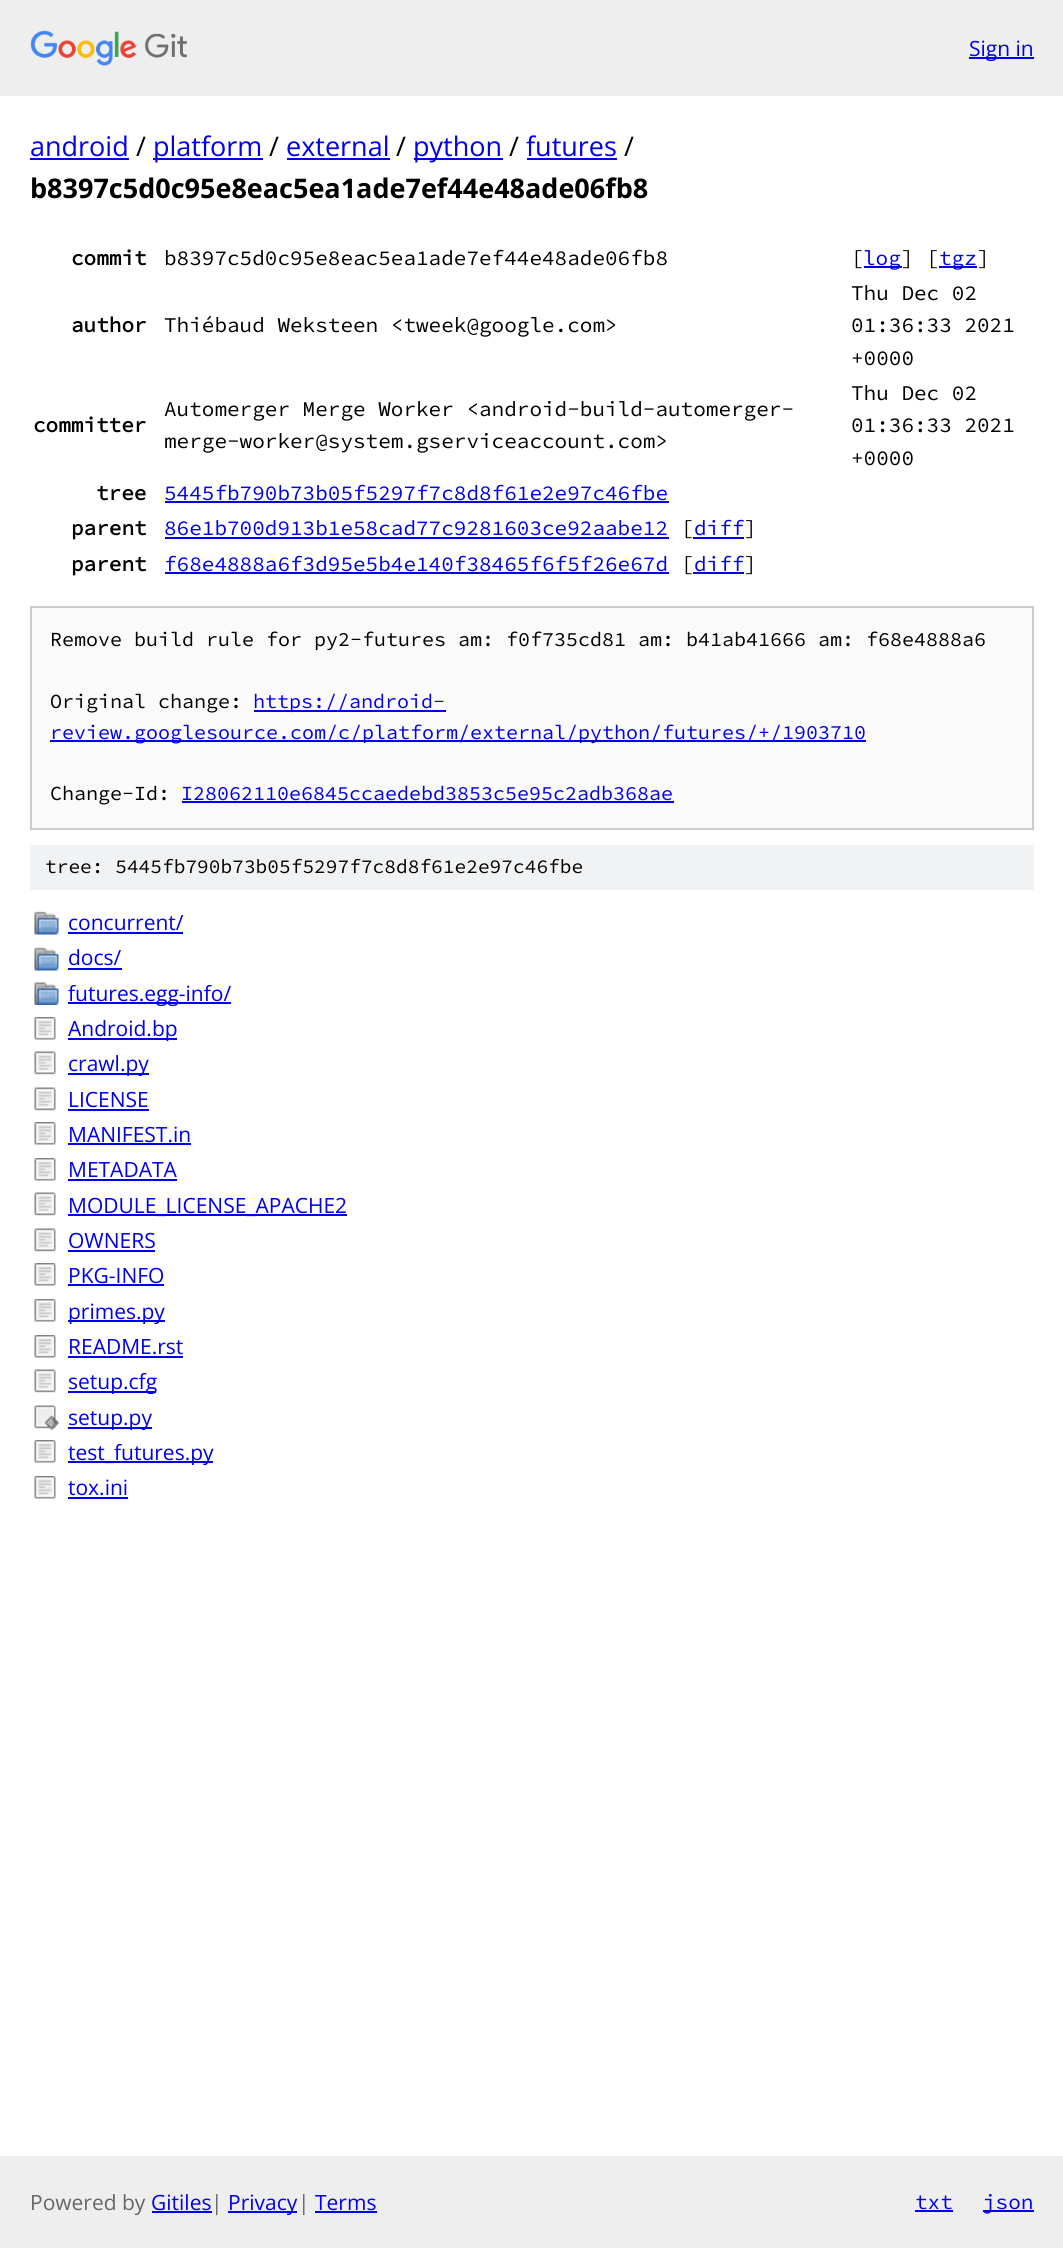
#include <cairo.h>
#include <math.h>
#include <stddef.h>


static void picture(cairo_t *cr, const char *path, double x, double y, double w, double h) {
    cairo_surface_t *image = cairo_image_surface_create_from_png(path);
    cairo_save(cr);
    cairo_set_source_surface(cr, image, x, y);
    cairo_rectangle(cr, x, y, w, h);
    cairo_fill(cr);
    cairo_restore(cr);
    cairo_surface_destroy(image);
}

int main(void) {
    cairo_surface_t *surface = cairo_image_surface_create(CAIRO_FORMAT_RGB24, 1063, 2248);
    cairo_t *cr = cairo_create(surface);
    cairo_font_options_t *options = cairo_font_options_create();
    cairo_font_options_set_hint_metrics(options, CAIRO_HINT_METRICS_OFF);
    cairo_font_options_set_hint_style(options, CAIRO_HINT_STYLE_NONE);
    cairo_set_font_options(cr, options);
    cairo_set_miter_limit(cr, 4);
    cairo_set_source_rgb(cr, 1, 1, 1);
    cairo_paint(cr);
    cairo_set_source_rgb(cr, 0.933, 0.933, 0.933);
    cairo_rectangle(cr, 0, 0, 1063, 96);
    cairo_fill(cr);
    picture(cr, "img1.png", 30, 30, 157, 36);
    cairo_set_source_rgb(cr, 0, 0, 0.933);
    cairo_rectangle(cr, 969, 57, 65, 2);
    cairo_fill(cr);
    cairo_select_font_face(cr, "Open Sans", CAIRO_FONT_SLANT_NORMAL, CAIRO_FONT_WEIGHT_NORMAL);
    cairo_set_font_size(cr, 21);
    cairo_move_to(cr, 969, 56);
    cairo_show_text(cr, "Sign in");
    cairo_set_font_size(cr, 27);
    cairo_move_to(cr, 30, 156);
    cairo_show_text(cr, "android");
    cairo_rectangle(cr, 30, 158, 99, 2);
    cairo_fill(cr);
    cairo_set_source_rgb(cr, 0, 0, 0);
    cairo_move_to(cr, 136, 156);
    cairo_show_text(cr, "/");
    cairo_set_source_rgb(cr, 0, 0, 0.933);
    cairo_rectangle(cr, 153, 158, 110, 2);
    cairo_fill(cr);
    cairo_move_to(cr, 153, 156);
    cairo_show_text(cr, "platform");
    cairo_set_source_rgb(cr, 0, 0, 0);
    cairo_move_to(cr, 269, 156);
    cairo_show_text(cr, "/");
    cairo_set_source_rgb(cr, 0, 0, 0.933);
    cairo_move_to(cr, 286, 156);
    cairo_show_text(cr, "external");
    cairo_rectangle(cr, 287, 158, 103, 2);
    cairo_fill(cr);
    cairo_set_source_rgb(cr, 0, 0, 0);
    cairo_move_to(cr, 396, 156);
    cairo_show_text(cr, "/");
    cairo_set_source_rgb(cr, 0, 0, 0.933);
    cairo_rectangle(cr, 414, 158, 89, 2);
    cairo_fill(cr);
    cairo_move_to(cr, 413, 156);
    cairo_show_text(cr, "python");
    cairo_set_source_rgb(cr, 0, 0, 0);
    cairo_move_to(cr, 509, 156);
    cairo_show_text(cr, "/");
    cairo_set_source_rgb(cr, 0, 0, 0.933);
    cairo_move_to(cr, 526, 156);
    cairo_show_text(cr, "futures");
    cairo_rectangle(cr, 527, 158, 90, 2);
    cairo_fill(cr);
    cairo_set_source_rgb(cr, 0, 0, 0);
    cairo_move_to(cr, 624, 156);
    cairo_show_text(cr, "/");
    cairo_select_font_face(cr, "Open Sans", CAIRO_FONT_SLANT_NORMAL, CAIRO_FONT_WEIGHT_BOLD);
    cairo_move_to(cr, 30, 198);
    cairo_show_text(cr, "b8397c5d0c95e8eac5ea1ade7ef44e48ade06fb8");
    cairo_select_font_face(cr, "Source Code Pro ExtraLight", CAIRO_FONT_SLANT_NORMAL, CAIRO_FONT_WEIGHT_BOLD);
    cairo_set_font_size(cr, 21);
    cairo_move_to(cr, 71, 265);
    cairo_show_text(cr, "commit");
    cairo_select_font_face(cr, "Source Code Pro ExtraLight ExtraLight", CAIRO_FONT_SLANT_NORMAL, CAIRO_FONT_WEIGHT_NORMAL);
    cairo_move_to(cr, 164, 265);
    cairo_show_text(cr, "b8397c5d0c95e8eac5ea1ade7ef44e48ade06fb8");
    cairo_move_to(cr, 851, 265);
    cairo_show_text(cr, "[");
    cairo_set_source_rgb(cr, 0, 0, 0.933);
    cairo_rectangle(cr, 864, 266, 38, 2);
    cairo_fill(cr);
    cairo_move_to(cr, 863, 265);
    cairo_show_text(cr, "log");
    cairo_set_source_rgb(cr, 0, 0, 0);
    cairo_move_to(cr, 901, 265);
    cairo_show_text(cr, "] [");
    cairo_set_source_rgb(cr, 0, 0, 0.933);
    cairo_rectangle(cr, 939, 266, 38, 2);
    cairo_fill(cr);
    cairo_move_to(cr, 939, 265);
    cairo_show_text(cr, "tgz");
    cairo_set_source_rgb(cr, 0, 0, 0);
    cairo_move_to(cr, 977, 265);
    cairo_show_text(cr, "]");
    cairo_select_font_face(cr, "Source Code Pro ExtraLight", CAIRO_FONT_SLANT_NORMAL, CAIRO_FONT_WEIGHT_BOLD);
    cairo_move_to(cr, 71, 332);
    cairo_show_text(cr, "author");
    cairo_select_font_face(cr, "Source Code Pro ExtraLight ExtraLight", CAIRO_FONT_SLANT_NORMAL, CAIRO_FONT_WEIGHT_NORMAL);
    cairo_move_to(cr, 164, 332);
    cairo_show_text(cr, "Thiébaud Weksteen <tweek@google.com>");
    cairo_move_to(cr, 851, 300);
    cairo_show_text(cr, "Thu Dec 02");
    cairo_move_to(cr, 851, 332);
    cairo_show_text(cr, "01:36:33 2021");
    cairo_move_to(cr, 851, 365);
    cairo_show_text(cr, "+0000");
    cairo_select_font_face(cr, "Source Code Pro ExtraLight", CAIRO_FONT_SLANT_NORMAL, CAIRO_FONT_WEIGHT_BOLD);
    cairo_move_to(cr, 33, 432);
    cairo_show_text(cr, "committer");
    cairo_select_font_face(cr, "Source Code Pro ExtraLight ExtraLight", CAIRO_FONT_SLANT_NORMAL, CAIRO_FONT_WEIGHT_NORMAL);
    cairo_move_to(cr, 164, 416);
    cairo_show_text(cr, "Automerger Merge Worker <android-build-automerger-");
    cairo_move_to(cr, 164, 448);
    cairo_show_text(cr, "merge-worker@system.gserviceaccount.com>");
    cairo_move_to(cr, 851, 400);
    cairo_show_text(cr, "Thu Dec 02");
    cairo_move_to(cr, 851, 432);
    cairo_show_text(cr, "01:36:33 2021");
    cairo_move_to(cr, 851, 465);
    cairo_show_text(cr, "+0000");
    cairo_select_font_face(cr, "Source Code Pro ExtraLight", CAIRO_FONT_SLANT_NORMAL, CAIRO_FONT_WEIGHT_BOLD);
    cairo_move_to(cr, 96, 500);
    cairo_show_text(cr, "tree");
    cairo_select_font_face(cr, "Source Code Pro ExtraLight ExtraLight", CAIRO_FONT_SLANT_NORMAL, CAIRO_FONT_WEIGHT_NORMAL);
    cairo_set_source_rgb(cr, 0, 0, 0.933);
    cairo_move_to(cr, 164, 500);
    cairo_show_text(cr, "5445fb790b73b05f5297f7c8d8f61e2e97c46fbe");
    cairo_rectangle(cr, 165, 501, 504, 2);
    cairo_fill(cr);
    cairo_select_font_face(cr, "Source Code Pro ExtraLight", CAIRO_FONT_SLANT_NORMAL, CAIRO_FONT_WEIGHT_BOLD);
    cairo_set_source_rgb(cr, 0, 0, 0);
    cairo_move_to(cr, 71, 535);
    cairo_show_text(cr, "parent");
    cairo_select_font_face(cr, "Source Code Pro ExtraLight ExtraLight", CAIRO_FONT_SLANT_NORMAL, CAIRO_FONT_WEIGHT_NORMAL);
    cairo_set_source_rgb(cr, 0, 0, 0.933);
    cairo_move_to(cr, 164, 535);
    cairo_show_text(cr, "86e1b700d913b1e58cad77c9281603ce92aabe12");
    cairo_rectangle(cr, 165, 537, 504, 2);
    cairo_fill(cr);
    cairo_set_source_rgb(cr, 0, 0, 0);
    cairo_move_to(cr, 681, 535);
    cairo_show_text(cr, "[");
    cairo_set_source_rgb(cr, 0, 0, 0.933);
    cairo_rectangle(cr, 693, 537, 51, 2);
    cairo_fill(cr);
    cairo_move_to(cr, 694, 535);
    cairo_show_text(cr, "diff");
    cairo_set_source_rgb(cr, 0, 0, 0);
    cairo_move_to(cr, 744, 535);
    cairo_show_text(cr, "]");
    cairo_select_font_face(cr, "Source Code Pro ExtraLight", CAIRO_FONT_SLANT_NORMAL, CAIRO_FONT_WEIGHT_BOLD);
    cairo_move_to(cr, 71, 571);
    cairo_show_text(cr, "parent");
    cairo_select_font_face(cr, "Source Code Pro ExtraLight ExtraLight", CAIRO_FONT_SLANT_NORMAL, CAIRO_FONT_WEIGHT_NORMAL);
    cairo_set_source_rgb(cr, 0, 0, 0.933);
    cairo_move_to(cr, 164, 571);
    cairo_show_text(cr, "f68e4888a6f3d95e5b4e140f38465f6f5f26e67d");
    cairo_rectangle(cr, 165, 572, 504, 2);
    cairo_fill(cr);
    cairo_set_source_rgb(cr, 0, 0, 0);
    cairo_move_to(cr, 681, 571);
    cairo_show_text(cr, "[");
    cairo_set_source_rgb(cr, 0, 0, 0.933);
    cairo_rectangle(cr, 693, 572, 51, 2);
    cairo_fill(cr);
    cairo_move_to(cr, 694, 571);
    cairo_show_text(cr, "diff");
    cairo_set_source_rgb(cr, 0, 0, 0);
    cairo_move_to(cr, 744, 571);
    cairo_show_text(cr, "]");
    cairo_set_source_rgb(cr, 0.98, 0.98, 0.98);
    cairo_rectangle(cr, 31, 607, 1002, 222);
    cairo_fill_preserve(cr);
    cairo_set_source_rgb(cr, 0.8, 0.8, 0.8);
    cairo_stroke(cr);
    cairo_set_font_size(cr, 20);
    cairo_set_source_rgb(cr, 0, 0, 0);
    cairo_move_to(cr, 50, 646);
    cairo_show_text(cr, "Remove build rule for py2-futures am: f0f735cd81 am: b41ab41666 am: f68e4888a6");
    cairo_move_to(cr, 50, 708);
    cairo_show_text(cr, "Original change:");
    cairo_set_source_rgb(cr, 0, 0, 0.933);
    cairo_rectangle(cr, 254, 710, 192, 2);
    cairo_fill(cr);
    cairo_move_to(cr, 253, 708);
    cairo_show_text(cr, "https://android-");
    cairo_rectangle(cr, 50, 740, 816, 2);
    cairo_fill(cr);
    cairo_move_to(cr, 50, 739);
    cairo_show_text(cr, "review.googlesource.com/c/platform/external/python/futures/+/1903710");
    cairo_set_source_rgb(cr, 0, 0, 0);
    cairo_move_to(cr, 50, 800);
    cairo_show_text(cr, "Change-Id:");
    cairo_set_source_rgb(cr, 0, 0, 0.933);
    cairo_move_to(cr, 181, 800);
    cairo_show_text(cr, "I28062110e6845ccaedebd3853c5e95c2adb368ae");
    cairo_rectangle(cr, 182, 801, 492, 2);
    cairo_fill(cr);
    cairo_set_source_rgb(cr, 0.945, 0.949, 0.953);
    cairo_rectangle(cr, 30, 845, 1004, 45);
    cairo_fill(cr);
    cairo_set_font_size(cr, 19.5);
    cairo_set_source_rgb(cr, 0, 0, 0);
    cairo_move_to(cr, 45, 873);
    cairo_show_text(cr, "tree: 5445fb790b73b05f5297f7c8d8f61e2e97c46fbe");
    picture(cr, "img2.png", 34, 911, 25, 24);
    cairo_select_font_face(cr, "Open Sans", CAIRO_FONT_SLANT_NORMAL, CAIRO_FONT_WEIGHT_NORMAL);
    cairo_set_font_size(cr, 21);
    cairo_set_source_rgb(cr, 0, 0, 0.933);
    cairo_move_to(cr, 68, 930);
    cairo_show_text(cr, "concurrent/");
    cairo_rectangle(cr, 68, 932, 115, 2);
    cairo_fill(cr);
    picture(cr, "img2.png", 34, 947, 25, 24);
    cairo_move_to(cr, 68, 965);
    cairo_show_text(cr, "docs/");
    cairo_rectangle(cr, 68, 968, 54, 2);
    cairo_fill(cr);
    picture(cr, "img3.png", 34, 982, 25, 23);
    cairo_rectangle(cr, 68, 1002, 163, 2);
    cairo_fill(cr);
    cairo_move_to(cr, 68, 1001);
    cairo_show_text(cr, "futures.egg-info/");
    picture(cr, "img4.png", 34, 1017, 22, 23);
    cairo_rectangle(cr, 68, 1038, 109, 2);
    cairo_fill(cr);
    cairo_move_to(cr, 68, 1036);
    cairo_show_text(cr, "Android.bp");
    picture(cr, "img5.png", 34, 1051, 22, 24);
    cairo_rectangle(cr, 68, 1073, 81, 2);
    cairo_fill(cr);
    cairo_move_to(cr, 68, 1071);
    cairo_show_text(cr, "crawl.py");
    picture(cr, "img5.png", 34, 1087, 22, 24);
    cairo_move_to(cr, 68, 1107);
    cairo_show_text(cr, "LICENSE");
    cairo_rectangle(cr, 68, 1109, 81, 2);
    cairo_fill(cr);
    picture(cr, "img4.png", 34, 1122, 22, 23);
    cairo_move_to(cr, 68, 1142);
    cairo_show_text(cr, "MANIFEST.in");
    cairo_rectangle(cr, 68, 1143, 123, 2);
    cairo_fill(cr);
    picture(cr, "img4.png", 34, 1158, 22, 23);
    cairo_move_to(cr, 68, 1177);
    cairo_show_text(cr, "METADATA");
    cairo_rectangle(cr, 68, 1179, 109, 2);
    cairo_fill(cr);
    picture(cr, "img5.png", 34, 1192, 22, 24);
    cairo_rectangle(cr, 68, 1214, 279, 2);
    cairo_fill(cr);
    cairo_move_to(cr, 68, 1213);
    cairo_show_text(cr, "MODULE_LICENSE_APACHE2");
    picture(cr, "img5.png", 34, 1228, 22, 24);
    cairo_move_to(cr, 68, 1248);
    cairo_show_text(cr, "OWNERS");
    cairo_rectangle(cr, 68, 1250, 87, 2);
    cairo_fill(cr);
    picture(cr, "img4.png", 34, 1263, 22, 23);
    cairo_move_to(cr, 68, 1283);
    cairo_show_text(cr, "PKG-INFO");
    cairo_rectangle(cr, 68, 1284, 96, 2);
    cairo_fill(cr);
    picture(cr, "img4.png", 34, 1299, 22, 23);
    cairo_rectangle(cr, 68, 1320, 97, 2);
    cairo_fill(cr);
    cairo_move_to(cr, 68, 1319);
    cairo_show_text(cr, "primes.py");
    picture(cr, "img4.png", 34, 1335, 22, 23);
    cairo_move_to(cr, 68, 1354);
    cairo_show_text(cr, "README.rst");
    cairo_rectangle(cr, 68, 1356, 115, 2);
    cairo_fill(cr);
    picture(cr, "img5.png", 34, 1369, 22, 24);
    cairo_rectangle(cr, 68, 1391, 88, 2);
    cairo_fill(cr);
    cairo_move_to(cr, 68, 1389);
    cairo_show_text(cr, "setup.cfg");
    picture(cr, "img6.png", 34, 1405, 25, 25);
    cairo_rectangle(cr, 68, 1427, 84, 2);
    cairo_fill(cr);
    cairo_move_to(cr, 68, 1425);
    cairo_show_text(cr, "setup.py");
    picture(cr, "img4.png", 34, 1440, 22, 23);
    cairo_rectangle(cr, 68, 1461, 145, 2);
    cairo_fill(cr);
    cairo_move_to(cr, 68, 1460);
    cairo_show_text(cr, "test_futures.py");
    picture(cr, "img4.png", 34, 1476, 22, 23);
    cairo_move_to(cr, 68, 1495);
    cairo_show_text(cr, "tox.ini");
    cairo_rectangle(cr, 68, 1497, 60, 2);
    cairo_fill(cr);
    cairo_set_source_rgb(cr, 0.933, 0.933, 0.933);
    cairo_rectangle(cr, 0, 2156, 1063, 92);
    cairo_fill(cr);
    cairo_set_source_rgb(cr, 0.4, 0.4, 0.4);
    cairo_move_to(cr, 30, 2210);
    cairo_show_text(cr, "Powered by");
    cairo_set_source_rgb(cr, 0, 0, 0.933);
    cairo_move_to(cr, 151, 2210);
    cairo_show_text(cr, "Gitiles");
    cairo_rectangle(cr, 152, 2211, 60, 2);
    cairo_fill(cr);
    cairo_set_source_rgb(cr, 0.4, 0.4, 0.4);
    cairo_move_to(cr, 211, 2210);
    cairo_show_text(cr, "|");
    cairo_set_source_rgb(cr, 0, 0, 0.933);
    cairo_rectangle(cr, 228, 2211, 69, 2);
    cairo_fill(cr);
    cairo_move_to(cr, 228, 2210);
    cairo_show_text(cr, "Privacy");
    cairo_set_source_rgb(cr, 0.4, 0.4, 0.4);
    cairo_move_to(cr, 298, 2210);
    cairo_show_text(cr, "|");
    cairo_set_source_rgb(cr, 0, 0, 0.933);
    cairo_move_to(cr, 315, 2210);
    cairo_show_text(cr, "Terms");
    cairo_rectangle(cr, 315, 2211, 62, 2);
    cairo_fill(cr);
    cairo_select_font_face(cr, "Source Code Pro ExtraLight ExtraLight", CAIRO_FONT_SLANT_NORMAL, CAIRO_FONT_WEIGHT_NORMAL);
    cairo_move_to(cr, 915, 2209);
    cairo_show_text(cr, "txt");
    cairo_rectangle(cr, 915, 2210, 38, 2);
    cairo_fill(cr);
    cairo_rectangle(cr, 983, 2210, 51, 2);
    cairo_fill(cr);
    cairo_move_to(cr, 983, 2209);
    cairo_show_text(cr, "json");
    cairo_surface_write_to_png(surface, "page.png");
    cairo_font_options_destroy(options);
    cairo_destroy(cr);
    cairo_surface_destroy(surface);
    return 0;
}
